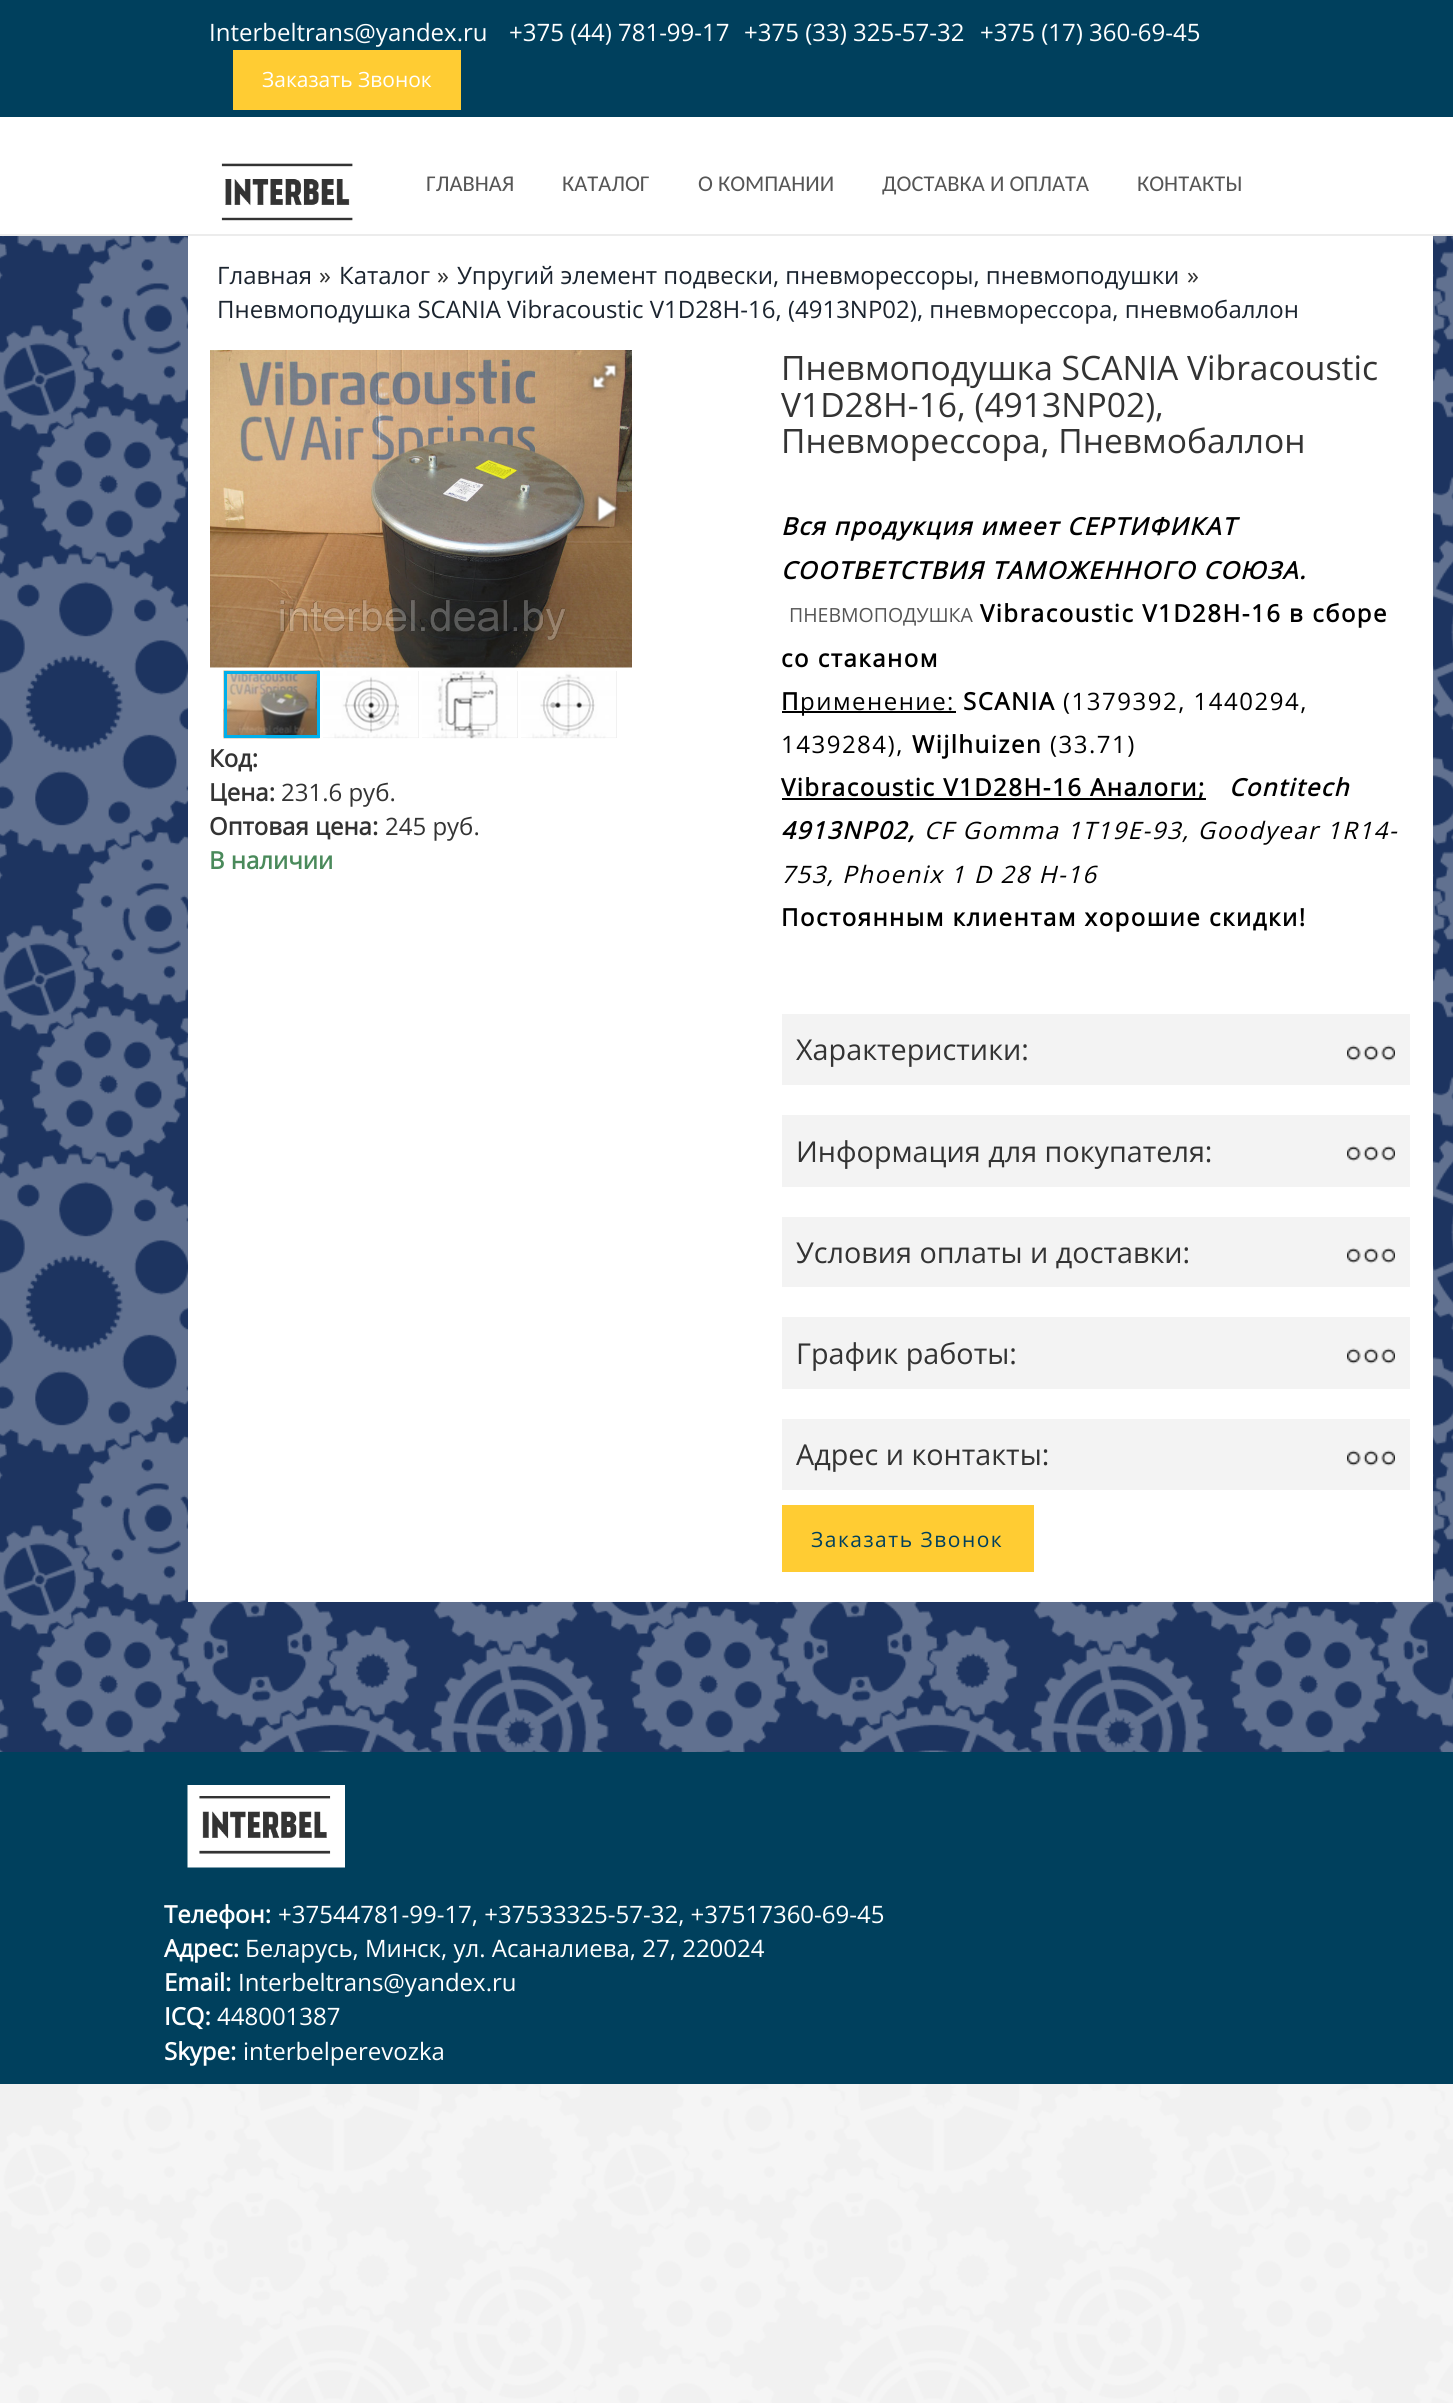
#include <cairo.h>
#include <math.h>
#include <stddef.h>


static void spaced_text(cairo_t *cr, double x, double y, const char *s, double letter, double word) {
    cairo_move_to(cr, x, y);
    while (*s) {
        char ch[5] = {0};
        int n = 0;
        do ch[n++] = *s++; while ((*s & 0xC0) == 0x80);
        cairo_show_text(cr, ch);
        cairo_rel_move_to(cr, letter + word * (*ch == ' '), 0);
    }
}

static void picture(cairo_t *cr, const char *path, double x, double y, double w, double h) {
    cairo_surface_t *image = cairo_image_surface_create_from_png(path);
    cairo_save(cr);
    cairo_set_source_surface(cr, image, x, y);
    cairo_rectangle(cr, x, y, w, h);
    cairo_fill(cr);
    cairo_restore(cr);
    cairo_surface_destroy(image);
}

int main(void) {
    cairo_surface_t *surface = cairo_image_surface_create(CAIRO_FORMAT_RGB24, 1453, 2403);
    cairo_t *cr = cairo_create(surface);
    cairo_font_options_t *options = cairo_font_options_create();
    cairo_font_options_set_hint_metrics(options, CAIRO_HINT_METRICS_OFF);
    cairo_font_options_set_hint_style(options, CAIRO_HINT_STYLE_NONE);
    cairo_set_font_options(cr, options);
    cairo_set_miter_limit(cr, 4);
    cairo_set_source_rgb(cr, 0.945, 0.945, 0.945);
    cairo_paint(cr);
    cairo_set_source_rgb(cr, 0.114, 0.204, 0.376);
    cairo_rectangle(cr, 0, 236, 1453, 1516);
    cairo_fill(cr);
    picture(cr, "img1.png", 0, 236, 1453, 2167);
    cairo_set_source_rgb(cr, 0, 0.251, 0.365);
    cairo_rectangle(cr, 0, 0, 1453, 117);
    cairo_fill(cr);
    cairo_select_font_face(cr, "Open Sans", CAIRO_FONT_SLANT_NORMAL, CAIRO_FONT_WEIGHT_NORMAL);
    cairo_set_font_size(cr, 24);
    cairo_set_source_rgb(cr, 1, 1, 1);
    cairo_move_to(cr, 209, 41);
    cairo_show_text(cr, "Interbeltrans@yandex.ru");
    cairo_move_to(cr, 509, 41);
    cairo_show_text(cr, "+375 (44) 781-99-17");
    cairo_move_to(cr, 744, 41);
    cairo_show_text(cr, "+375 (33) 325-57-32");
    cairo_move_to(cr, 980, 41);
    cairo_show_text(cr, "+375 (17) 360-69-45");
    cairo_set_source_rgb(cr, 1, 0.8, 0.2);
    cairo_rectangle(cr, 233, 50, 228, 60);
    cairo_fill(cr);
    cairo_set_font_size(cr, 21);
    cairo_set_source_rgb(cr, 1, 1, 1);
    cairo_move_to(cr, 262, 87);
    cairo_show_text(cr, "Заказать Звонок");
    cairo_rectangle(cr, 0, 117, 1453, 117);
    cairo_fill(cr);
    cairo_set_source_rgb(cr, 0.925, 0.925, 0.925);
    cairo_rectangle(cr, 0, 234, 1453, 2);
    cairo_fill(cr);
    picture(cr, "img2.png", 221, 163, 132, 58);
    cairo_select_font_face(cr, "Carlito", CAIRO_FONT_SLANT_NORMAL, CAIRO_FONT_WEIGHT_NORMAL);
    cairo_set_font_size(cr, 22.5);
    cairo_set_source_rgb(cr, 0.333, 0.333, 0.333);
    cairo_move_to(cr, 426, 191);
    cairo_show_text(cr, "ГЛАВНАЯ");
    cairo_move_to(cr, 562, 191);
    cairo_show_text(cr, "КАТАЛОГ");
    cairo_move_to(cr, 698, 191);
    cairo_show_text(cr, "О КОМПАНИИ");
    cairo_move_to(cr, 882, 191);
    cairo_show_text(cr, "ДОСТАВКА И ОПЛАТА");
    cairo_move_to(cr, 1137, 191);
    cairo_show_text(cr, "КОНТАКТЫ");
    cairo_set_source_rgb(cr, 1, 1, 1);
    cairo_rectangle(cr, 188, 236, 1245, 1366);
    cairo_fill(cr);
    cairo_select_font_face(cr, "Open Sans", CAIRO_FONT_SLANT_NORMAL, CAIRO_FONT_WEIGHT_NORMAL);
    cairo_set_font_size(cr, 24);
    cairo_set_source_rgb(cr, 0.106, 0.141, 0.184);
    cairo_move_to(cr, 217, 284);
    cairo_show_text(cr, "Главная");
    cairo_set_source_rgb(cr, 0.2, 0.2, 0.2);
    cairo_move_to(cr, 319, 284);
    cairo_show_text(cr, "»");
    cairo_set_source_rgb(cr, 0.106, 0.141, 0.184);
    cairo_move_to(cr, 339, 284);
    cairo_show_text(cr, "Каталог");
    cairo_set_source_rgb(cr, 0.2, 0.2, 0.2);
    cairo_move_to(cr, 437, 284);
    cairo_show_text(cr, "»");
    cairo_set_source_rgb(cr, 0.106, 0.141, 0.184);
    cairo_move_to(cr, 457, 284);
    cairo_show_text(cr, "Упругий элемент подвески, пневморессоры, пневмоподушки");
    cairo_set_source_rgb(cr, 0.2, 0.2, 0.2);
    cairo_move_to(cr, 1187, 284);
    cairo_show_text(cr, "»");
    cairo_set_source_rgb(cr, 0.106, 0.141, 0.184);
    cairo_move_to(cr, 217, 318);
    cairo_show_text(cr, "Пневмоподушка SCANIA Vibracoustic V1D28H-16, (4913NP02), пневморессора, пневмобаллон");
    picture(cr, "img3.png", 210, 350, 422, 318);
    picture(cr, "img4.png", 588, 360, 33, 33);
    picture(cr, "img5.png", 224, 497, 21, 23);
    picture(cr, "img6.png", 592, 493, 27, 31);
    picture(cr, "img7.png", 223, 670, 97, 69);
    cairo_set_source_rgb(cr, 0.898, 0.898, 0.898);
    cairo_rectangle(cr, 422, 671, 96, 67);
    cairo_fill(cr);
    picture(cr, "img8.png", 422, 670, 96, 69);
    cairo_rectangle(cr, 225.5, 672.5, 93, 64);
    cairo_set_source_rgb(cr, 0, 0.686, 0.918);
    cairo_set_line_width(cr, 3);
    cairo_stroke(cr);
    cairo_set_source_rgb(cr, 0.898, 0.898, 0.898);
    cairo_rectangle(cr, 323, 671, 96, 67);
    cairo_fill(cr);
    picture(cr, "img9.png", 323, 671, 96, 68);
    cairo_rectangle(cr, 521, 671, 96, 67);
    cairo_fill(cr);
    picture(cr, "img10.png", 521, 671, 96, 68);
    cairo_select_font_face(cr, "Open Sans", CAIRO_FONT_SLANT_NORMAL, CAIRO_FONT_WEIGHT_BOLD);
    cairo_set_source_rgb(cr, 0.2, 0.2, 0.2);
    cairo_move_to(cr, 209, 767);
    cairo_show_text(cr, "Код:");
    cairo_move_to(cr, 209, 801);
    cairo_show_text(cr, "Цена:");
    cairo_select_font_face(cr, "Open Sans", CAIRO_FONT_SLANT_NORMAL, CAIRO_FONT_WEIGHT_NORMAL);
    cairo_move_to(cr, 281, 801);
    cairo_show_text(cr, "231.6 руб.");
    cairo_select_font_face(cr, "Open Sans", CAIRO_FONT_SLANT_NORMAL, CAIRO_FONT_WEIGHT_BOLD);
    cairo_move_to(cr, 209, 835);
    cairo_show_text(cr, "Оптовая цена:");
    cairo_select_font_face(cr, "Open Sans", CAIRO_FONT_SLANT_NORMAL, CAIRO_FONT_WEIGHT_NORMAL);
    cairo_move_to(cr, 385, 835);
    cairo_show_text(cr, "245 руб.");
    cairo_select_font_face(cr, "Open Sans", CAIRO_FONT_SLANT_NORMAL, CAIRO_FONT_WEIGHT_BOLD);
    cairo_set_source_rgb(cr, 0.29, 0.541, 0.357);
    cairo_move_to(cr, 209, 869);
    cairo_show_text(cr, "В наличии");
    cairo_select_font_face(cr, "Open Sans", CAIRO_FONT_SLANT_NORMAL, CAIRO_FONT_WEIGHT_NORMAL);
    cairo_set_font_size(cr, 33.6);
    cairo_set_source_rgb(cr, 0.2, 0.2, 0.2);
    cairo_move_to(cr, 781, 380);
    cairo_show_text(cr, "Пневмоподушка SCANIA Vibracoustic");
    cairo_move_to(cr, 781, 417);
    cairo_show_text(cr, "V1D28H-16, (4913NP02),");
    cairo_move_to(cr, 781, 453);
    cairo_show_text(cr, "Пневморессора, Пневмобаллон");
    cairo_select_font_face(cr, "Open Sans", CAIRO_FONT_SLANT_ITALIC, CAIRO_FONT_WEIGHT_BOLD);
    cairo_set_font_size(cr, 24);
    cairo_set_source_rgb(cr, 0, 0, 0);
    spaced_text(cr, 781, 535, "Вся продукция имеет СЕРТИФИКАТ", 1.5, 0);
    spaced_text(cr, 781, 579, "СООТВЕТСТВИЯ ТАМОЖЕННОГО СОЮЗА.", 1.5, 0);
    cairo_select_font_face(cr, "Open Sans", CAIRO_FONT_SLANT_NORMAL, CAIRO_FONT_WEIGHT_NORMAL);
    cairo_set_font_size(cr, 19.5);
    cairo_set_source_rgb(cr, 0.333, 0.333, 0.333);
    cairo_move_to(cr, 789, 622);
    cairo_show_text(cr, "ПНЕВМОПОДУШКА");
    cairo_select_font_face(cr, "Open Sans", CAIRO_FONT_SLANT_NORMAL, CAIRO_FONT_WEIGHT_BOLD);
    cairo_set_font_size(cr, 24);
    cairo_set_source_rgb(cr, 0, 0, 0);
    spaced_text(cr, 980, 622, "Vibracoustic V1D28H-16 в сборе", 1.5, 0);
    spaced_text(cr, 781, 667, "со стаканом", 1.5, 0);
    spaced_text(cr, 781, 710, "П", 1.5, 0);
    cairo_rectangle(cr, 782, 711, 174, 2);
    cairo_fill(cr);
    cairo_select_font_face(cr, "Open Sans", CAIRO_FONT_SLANT_NORMAL, CAIRO_FONT_WEIGHT_NORMAL);
    spaced_text(cr, 800, 710, "рименение:", 1.5, 0);
    cairo_select_font_face(cr, "Open Sans", CAIRO_FONT_SLANT_NORMAL, CAIRO_FONT_WEIGHT_BOLD);
    spaced_text(cr, 963, 710, "SCANIA", 1.5, 0);
    cairo_select_font_face(cr, "Open Sans", CAIRO_FONT_SLANT_NORMAL, CAIRO_FONT_WEIGHT_NORMAL);
    spaced_text(cr, 1063, 710, "(1379392, 1440294,", 1.5, 0);
    spaced_text(cr, 781, 753, "1439284),", 1.5, 0);
    cairo_select_font_face(cr, "Open Sans", CAIRO_FONT_SLANT_NORMAL, CAIRO_FONT_WEIGHT_BOLD);
    spaced_text(cr, 912, 753, "Wijlhuizen", 1.5, 0);
    cairo_select_font_face(cr, "Open Sans", CAIRO_FONT_SLANT_NORMAL, CAIRO_FONT_WEIGHT_NORMAL);
    spaced_text(cr, 1050, 753, "(33.71)", 1.5, 0);
    cairo_rectangle(cr, 782, 798, 424, 2);
    cairo_fill(cr);
    cairo_select_font_face(cr, "Open Sans", CAIRO_FONT_SLANT_NORMAL, CAIRO_FONT_WEIGHT_BOLD);
    spaced_text(cr, 781, 796, "Vibracoustic V1D28H-16 Аналоги;", 1.5, 0);
    cairo_select_font_face(cr, "Open Sans", CAIRO_FONT_SLANT_ITALIC, CAIRO_FONT_WEIGHT_BOLD);
    spaced_text(cr, 1229, 796, "Contitech", 1.5, 0);
    spaced_text(cr, 781, 839, "4913NP02,", 1.5, 0);
    cairo_select_font_face(cr, "Open Sans", CAIRO_FONT_SLANT_ITALIC, CAIRO_FONT_WEIGHT_NORMAL);
    spaced_text(cr, 924, 839, "CF Gomma 1T19E-93, Goodyear 1R14-", 1.5, 0);
    spaced_text(cr, 781, 883, "753, Phoenix 1 D 28 H-16", 1.5, 0);
    cairo_select_font_face(cr, "Open Sans", CAIRO_FONT_SLANT_NORMAL, CAIRO_FONT_WEIGHT_BOLD);
    spaced_text(cr, 781, 926, "Постоянным клиентам хорошие скидки!", 1.5, 0);
    cairo_set_source_rgb(cr, 0.953, 0.953, 0.953);
    cairo_rectangle(cr, 782, 1014, 628, 71);
    cairo_fill(cr);
    cairo_select_font_face(cr, "Open Sans", CAIRO_FONT_SLANT_NORMAL, CAIRO_FONT_WEIGHT_NORMAL);
    cairo_set_font_size(cr, 28.75);
    cairo_set_source_rgb(cr, 0.2, 0.2, 0.2);
    cairo_move_to(cr, 796, 1060);
    cairo_show_text(cr, "Характеристики:");
    picture(cr, "img11.png", 1347, 1045, 48, 16);
    cairo_set_source_rgb(cr, 0.953, 0.953, 0.953);
    cairo_rectangle(cr, 782, 1115, 628, 72);
    cairo_fill(cr);
    cairo_set_source_rgb(cr, 0.2, 0.2, 0.2);
    cairo_move_to(cr, 796, 1162);
    cairo_show_text(cr, "Информация для покупателя:");
    picture(cr, "img12.png", 1347, 1145, 48, 17);
    cairo_set_source_rgb(cr, 0.953, 0.953, 0.953);
    cairo_rectangle(cr, 782, 1217, 628, 70);
    cairo_fill(cr);
    cairo_set_source_rgb(cr, 0.2, 0.2, 0.2);
    cairo_move_to(cr, 796, 1263);
    cairo_show_text(cr, "Условия оплаты и доставки:");
    picture(cr, "img12.png", 1347, 1247, 48, 17);
    cairo_set_source_rgb(cr, 0.953, 0.953, 0.953);
    cairo_rectangle(cr, 782, 1317, 628, 72);
    cairo_fill(cr);
    cairo_set_source_rgb(cr, 0.2, 0.2, 0.2);
    cairo_move_to(cr, 796, 1364);
    cairo_show_text(cr, "График работы:");
    picture(cr, "img11.png", 1347, 1348, 48, 16);
    cairo_set_source_rgb(cr, 0.953, 0.953, 0.953);
    cairo_rectangle(cr, 782, 1419, 628, 71);
    cairo_fill(cr);
    cairo_set_source_rgb(cr, 0.2, 0.2, 0.2);
    cairo_move_to(cr, 796, 1465);
    cairo_show_text(cr, "Адрес и контакты:");
    picture(cr, "img11.png", 1347, 1450, 48, 16);
    cairo_set_source_rgb(cr, 1, 0.8, 0.2);
    cairo_rectangle(cr, 782, 1505, 252, 67);
    cairo_fill(cr);
    cairo_set_font_size(cr, 21);
    cairo_set_source_rgb(cr, 0, 0.251, 0.365);
    spaced_text(cr, 811, 1547, "Заказать Звонок", 1.5, 0);
    cairo_rectangle(cr, 0, 1752, 1453, 332);
    cairo_fill(cr);
    picture(cr, "img13.png", 187, 1785, 158, 83);
    cairo_select_font_face(cr, "Open Sans", CAIRO_FONT_SLANT_NORMAL, CAIRO_FONT_WEIGHT_BOLD);
    cairo_set_font_size(cr, 24);
    cairo_set_source_rgb(cr, 1, 1, 1);
    cairo_move_to(cr, 164, 1923);
    cairo_show_text(cr, "Телефон:");
    cairo_select_font_face(cr, "Open Sans", CAIRO_FONT_SLANT_NORMAL, CAIRO_FONT_WEIGHT_NORMAL);
    cairo_move_to(cr, 278, 1923);
    cairo_show_text(cr, "+37544781-99-17, +37533325-57-32, +37517360-69-45");
    cairo_select_font_face(cr, "Open Sans", CAIRO_FONT_SLANT_NORMAL, CAIRO_FONT_WEIGHT_BOLD);
    cairo_move_to(cr, 164, 1957);
    cairo_show_text(cr, "Адрес:");
    cairo_select_font_face(cr, "Open Sans", CAIRO_FONT_SLANT_NORMAL, CAIRO_FONT_WEIGHT_NORMAL);
    cairo_move_to(cr, 245, 1957);
    cairo_show_text(cr, "Беларусь, Минск, ул. Асаналиева, 27, 220024");
    cairo_select_font_face(cr, "Open Sans", CAIRO_FONT_SLANT_NORMAL, CAIRO_FONT_WEIGHT_BOLD);
    cairo_move_to(cr, 164, 1991);
    cairo_show_text(cr, "Email:");
    cairo_select_font_face(cr, "Open Sans", CAIRO_FONT_SLANT_NORMAL, CAIRO_FONT_WEIGHT_NORMAL);
    cairo_move_to(cr, 238, 1991);
    cairo_show_text(cr, "Interbeltrans@yandex.ru");
    cairo_select_font_face(cr, "Open Sans", CAIRO_FONT_SLANT_NORMAL, CAIRO_FONT_WEIGHT_BOLD);
    cairo_move_to(cr, 164, 2025);
    cairo_show_text(cr, "ICQ:");
    cairo_select_font_face(cr, "Open Sans", CAIRO_FONT_SLANT_NORMAL, CAIRO_FONT_WEIGHT_NORMAL);
    cairo_move_to(cr, 217, 2025);
    cairo_show_text(cr, "448001387");
    cairo_select_font_face(cr, "Open Sans", CAIRO_FONT_SLANT_NORMAL, CAIRO_FONT_WEIGHT_BOLD);
    cairo_move_to(cr, 164, 2060);
    cairo_show_text(cr, "Skype:");
    cairo_select_font_face(cr, "Open Sans", CAIRO_FONT_SLANT_NORMAL, CAIRO_FONT_WEIGHT_NORMAL);
    cairo_move_to(cr, 243, 2060);
    cairo_show_text(cr, "interbelperevozka");
    cairo_surface_write_to_png(surface, "page.png");
    cairo_font_options_destroy(options);
    cairo_destroy(cr);
    cairo_surface_destroy(surface);
    return 0;
}
